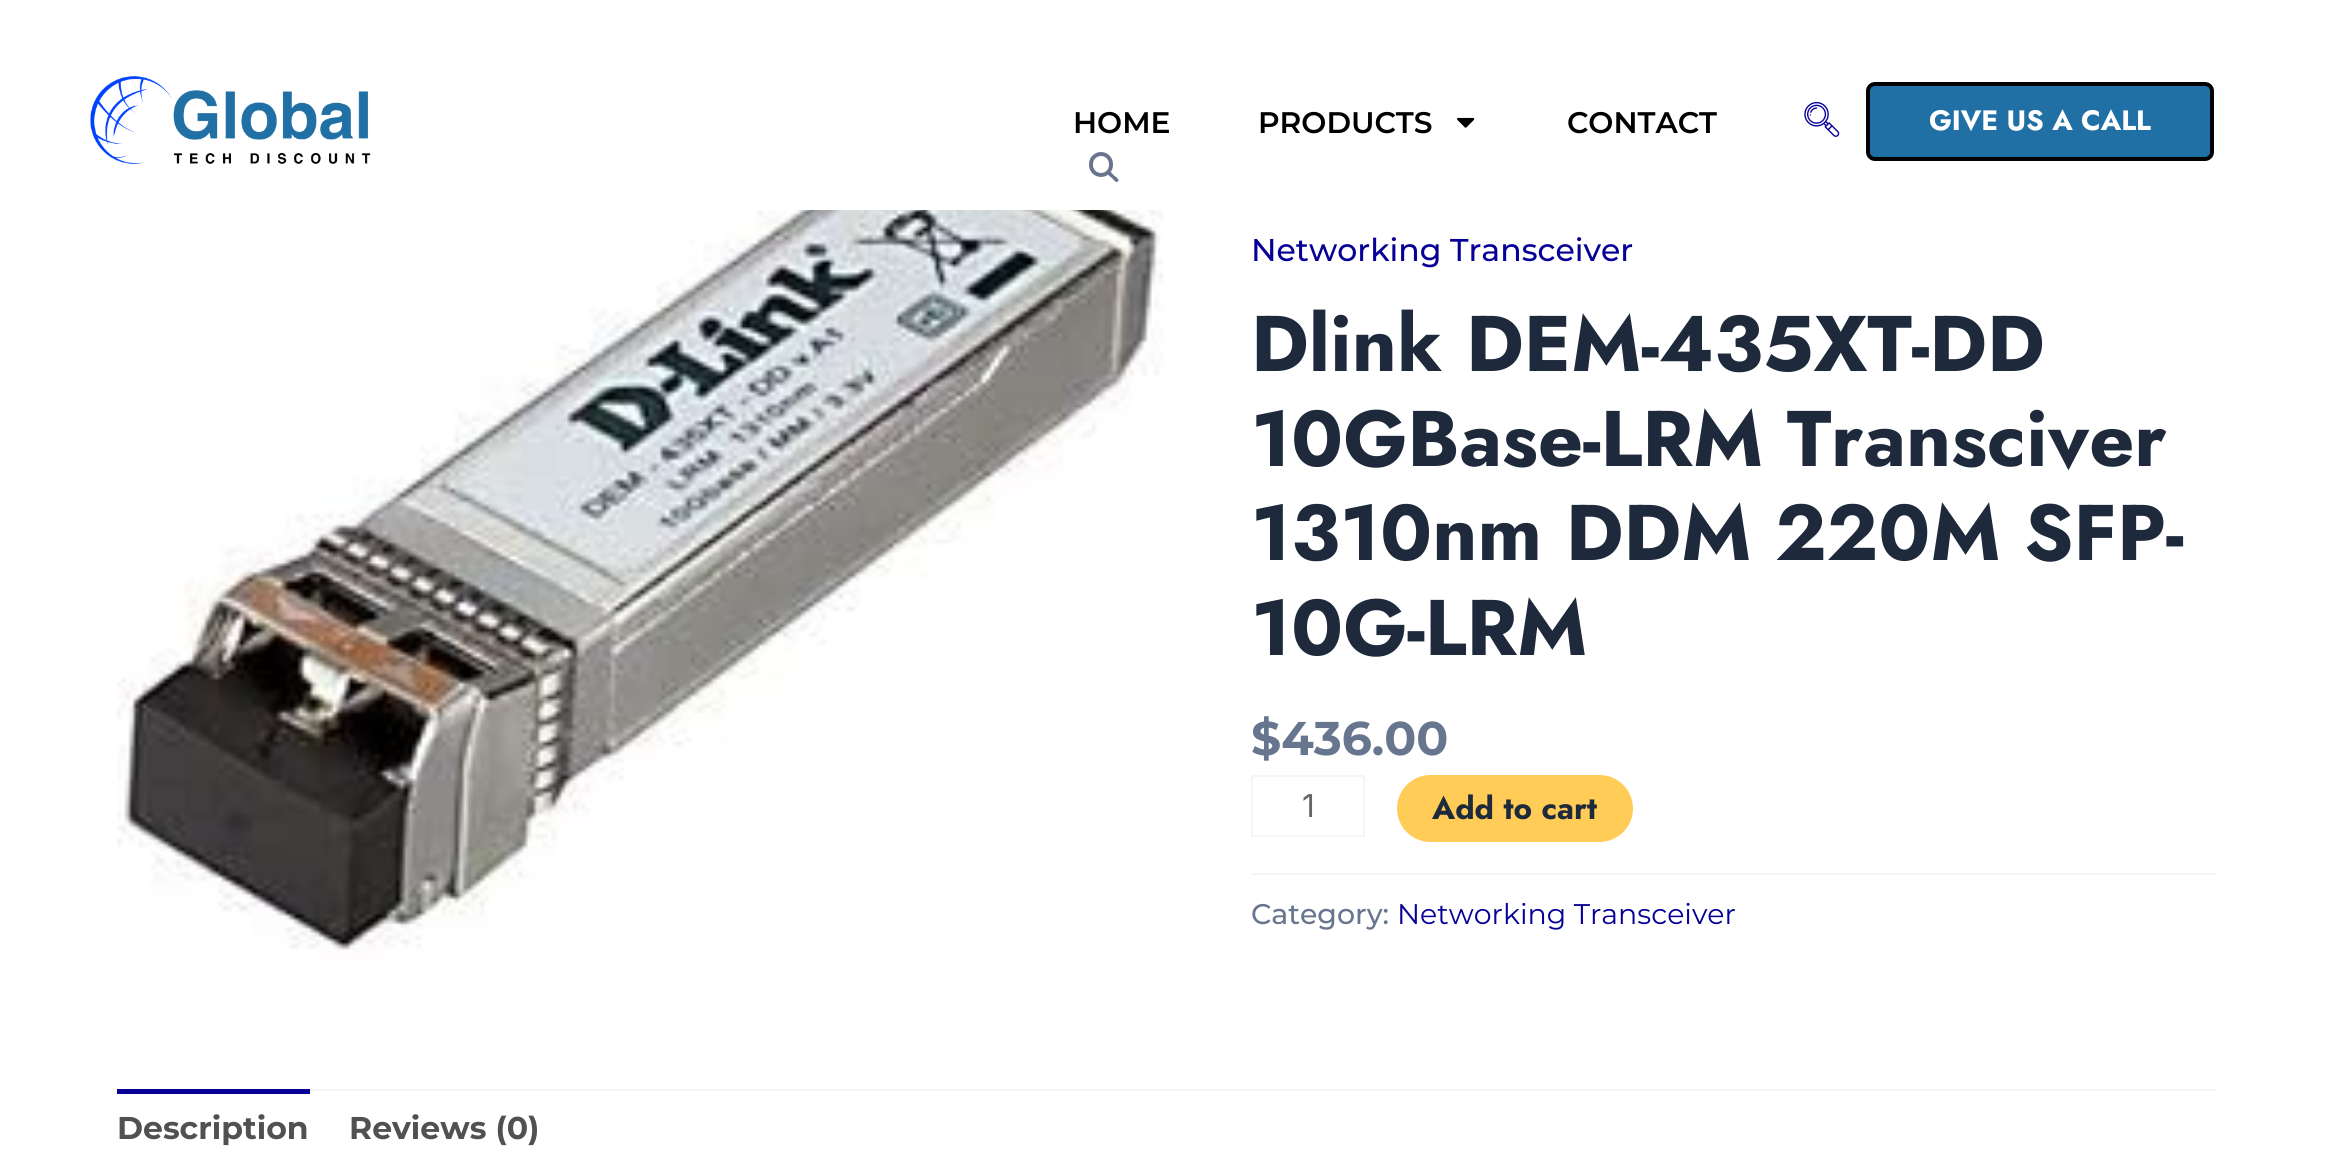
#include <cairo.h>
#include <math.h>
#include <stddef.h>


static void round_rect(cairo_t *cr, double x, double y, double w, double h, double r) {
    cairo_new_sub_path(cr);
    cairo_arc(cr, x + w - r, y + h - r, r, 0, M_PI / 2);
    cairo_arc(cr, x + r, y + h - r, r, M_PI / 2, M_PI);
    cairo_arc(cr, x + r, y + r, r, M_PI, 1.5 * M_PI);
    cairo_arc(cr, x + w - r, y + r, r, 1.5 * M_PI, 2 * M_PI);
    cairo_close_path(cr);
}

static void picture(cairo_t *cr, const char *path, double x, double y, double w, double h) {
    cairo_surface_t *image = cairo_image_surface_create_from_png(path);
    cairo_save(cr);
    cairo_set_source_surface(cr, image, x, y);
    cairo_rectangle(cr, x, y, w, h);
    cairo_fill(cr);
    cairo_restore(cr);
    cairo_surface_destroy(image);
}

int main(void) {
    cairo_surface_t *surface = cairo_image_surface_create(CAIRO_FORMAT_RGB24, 2334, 1164);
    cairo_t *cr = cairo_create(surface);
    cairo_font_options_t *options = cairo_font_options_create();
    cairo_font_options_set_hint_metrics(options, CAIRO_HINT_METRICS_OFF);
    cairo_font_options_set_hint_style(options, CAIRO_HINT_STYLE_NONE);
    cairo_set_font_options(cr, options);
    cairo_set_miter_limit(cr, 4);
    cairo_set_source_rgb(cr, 1, 1, 1);
    cairo_paint(cr);
    picture(cr, "img1.png", 90, 76, 281, 88);
    cairo_select_font_face(cr, "Montserrat SemiBold", CAIRO_FONT_SLANT_NORMAL, CAIRO_FONT_WEIGHT_NORMAL);
    cairo_set_font_size(cr, 29.75);
    cairo_set_source_rgb(cr, 0, 0, 0);
    cairo_move_to(cr, 1073, 133);
    cairo_show_text(cr, "HOME");
    cairo_move_to(cr, 1258, 133);
    cairo_show_text(cr, "PRODUCTS");
    picture(cr, "img2.png", 1457, 117, 18, 11);
    cairo_move_to(cr, 1567, 133);
    cairo_show_text(cr, "CONTACT");
    picture(cr, "img3.png", 1804, 101, 36, 36);
    cairo_set_source_rgb(cr, 0.129, 0.439, 0.647);
    round_rect(cr, 1868, 84, 344, 75, 7);
    cairo_fill_preserve(cr);
    cairo_set_source_rgb(cr, 0, 0, 0);
    cairo_set_line_width(cr, 4);
    cairo_stroke(cr);
    cairo_select_font_face(cr, "Jost", CAIRO_FONT_SLANT_NORMAL, CAIRO_FONT_WEIGHT_BOLD);
    cairo_set_font_size(cr, 28);
    cairo_set_source_rgb(cr, 1, 1, 1);
    cairo_move_to(cr, 1929, 130);
    cairo_show_text(cr, "GIVE US A CALL");
    round_rect(cr, 1091, 154, 20, 21, 10);
    cairo_set_source_rgb(cr, 0.404, 0.463, 0.557);
    cairo_stroke(cr);
    cairo_new_path(cr);
    cairo_move_to(cr, 1108, 172);
    cairo_curve_to(cr, 1110, 170, 1113, 174.5, 1114, 175.5);
    cairo_curve_to(cr, 1115.5, 176.5, 1120, 179.5, 1118, 181.5);
    cairo_curve_to(cr, 1116, 183.5, 1113, 179, 1112, 178);
    cairo_curve_to(cr, 1110.5, 177, 1106, 174, 1108, 172);
    cairo_close_path(cr);
    cairo_fill(cr);
    picture(cr, "img4.png", 117, 210, 1047, 750);
    cairo_select_font_face(cr, "Montserrat Medium", CAIRO_FONT_SLANT_NORMAL, CAIRO_FONT_WEIGHT_NORMAL);
    cairo_set_font_size(cr, 31.5);
    cairo_set_source_rgb(cr, 0.024, 0, 0.592);
    cairo_move_to(cr, 1251, 261);
    cairo_show_text(cr, "Networking Transceiver");
    cairo_select_font_face(cr, "Jost", CAIRO_FONT_SLANT_NORMAL, CAIRO_FONT_WEIGHT_BOLD);
    cairo_set_font_size(cr, 78.75);
    cairo_set_source_rgb(cr, 0.118, 0.161, 0.231);
    cairo_move_to(cr, 1251, 371);
    cairo_show_text(cr, "Dlink DEM-435XT-DD");
    cairo_move_to(cr, 1251, 466);
    cairo_show_text(cr, "10GBase-LRM Transciver");
    cairo_move_to(cr, 1251, 560);
    cairo_show_text(cr, "1310nm DDM 220M SFP-");
    cairo_move_to(cr, 1251, 655);
    cairo_show_text(cr, "10G-LRM");
    cairo_select_font_face(cr, "Montserrat", CAIRO_FONT_SLANT_NORMAL, CAIRO_FONT_WEIGHT_BOLD);
    cairo_set_font_size(cr, 47.25);
    cairo_set_source_rgb(cr, 0.404, 0.463, 0.557);
    cairo_move_to(cr, 1251, 755);
    cairo_show_text(cr, "$436.00");
    cairo_rectangle(cr, 1252, 776, 112, 60);
    cairo_set_source_rgb(cr, 0.949, 0.961, 0.969);
    cairo_set_line_width(cr, 2);
    cairo_stroke(cr);
    cairo_select_font_face(cr, "Inter", CAIRO_FONT_SLANT_NORMAL, CAIRO_FONT_WEIGHT_NORMAL);
    cairo_set_font_size(cr, 31.5);
    cairo_set_source_rgb(cr, 0.4, 0.4, 0.4);
    cairo_move_to(cr, 1302, 817);
    cairo_show_text(cr, "1");
    cairo_set_source_rgb(cr, 1, 0.804, 0.341);
    round_rect(cr, 1397, 775, 236, 67, 33.5);
    cairo_fill(cr);
    cairo_select_font_face(cr, "Jost", CAIRO_FONT_SLANT_NORMAL, CAIRO_FONT_WEIGHT_BOLD);
    cairo_set_source_rgb(cr, 0.118, 0.161, 0.231);
    cairo_move_to(cr, 1432, 819);
    cairo_show_text(cr, "Add to cart");
    cairo_set_source_rgb(cr, 0.949, 0.961, 0.969);
    cairo_rectangle(cr, 1251, 873, 966, 2);
    cairo_fill(cr);
    cairo_select_font_face(cr, "Montserrat Medium", CAIRO_FONT_SLANT_NORMAL, CAIRO_FONT_WEIGHT_NORMAL);
    cairo_set_font_size(cr, 28.4);
    cairo_set_source_rgb(cr, 0.404, 0.463, 0.557);
    cairo_move_to(cr, 1251, 924);
    cairo_show_text(cr, "Category:");
    cairo_select_font_face(cr, "Montserrat", CAIRO_FONT_SLANT_NORMAL, CAIRO_FONT_WEIGHT_NORMAL);
    cairo_set_source_rgb(cr, 0.024, 0, 0.592);
    cairo_move_to(cr, 1397, 924);
    cairo_show_text(cr, "Networking Transceiver");
    cairo_set_source_rgb(cr, 0.949, 0.961, 0.969);
    cairo_rectangle(cr, 310, 1089, 1907, 2);
    cairo_fill(cr);
    cairo_set_source_rgb(cr, 0.024, 0, 0.592);
    cairo_rectangle(cr, 117, 1089, 193, 5);
    cairo_fill(cr);
    cairo_select_font_face(cr, "Montserrat", CAIRO_FONT_SLANT_NORMAL, CAIRO_FONT_WEIGHT_BOLD);
    cairo_set_font_size(cr, 31.5);
    cairo_set_source_rgb(cr, 0.318, 0.318, 0.318);
    cairo_move_to(cr, 117, 1139);
    cairo_show_text(cr, "Description");
    cairo_move_to(cr, 349, 1139);
    cairo_show_text(cr, "Reviews (0)");
    cairo_surface_write_to_png(surface, "page.png");
    cairo_font_options_destroy(options);
    cairo_destroy(cr);
    cairo_surface_destroy(surface);
    return 0;
}
